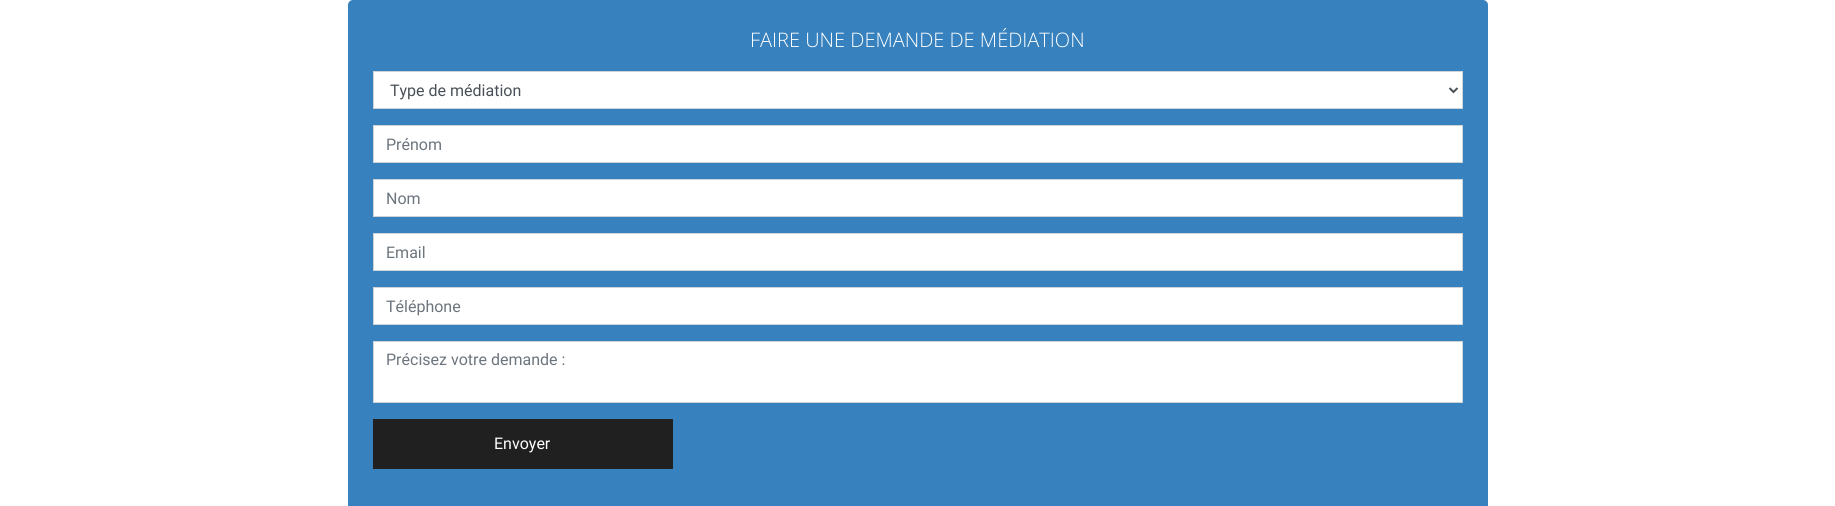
#include <cairo.h>
#include <math.h>
#include <stddef.h>


static void round_rect(cairo_t *cr, double x, double y, double w, double h, double r) {
    cairo_new_sub_path(cr);
    cairo_arc(cr, x + w - r, y + h - r, r, 0, M_PI / 2);
    cairo_arc(cr, x + r, y + h - r, r, M_PI / 2, M_PI);
    cairo_arc(cr, x + r, y + r, r, M_PI, 1.5 * M_PI);
    cairo_arc(cr, x + w - r, y + r, r, 1.5 * M_PI, 2 * M_PI);
    cairo_close_path(cr);
}

int main(void) {
    cairo_surface_t *surface = cairo_image_surface_create(CAIRO_FORMAT_RGB24, 1835, 506);
    cairo_t *cr = cairo_create(surface);
    cairo_font_options_t *options = cairo_font_options_create();
    cairo_font_options_set_hint_metrics(options, CAIRO_HINT_METRICS_OFF);
    cairo_font_options_set_hint_style(options, CAIRO_HINT_STYLE_NONE);
    cairo_set_font_options(cr, options);
    cairo_set_miter_limit(cr, 4);
    cairo_set_source_rgb(cr, 1, 1, 1);
    cairo_paint(cr);
    cairo_set_source_rgb(cr, 0.212, 0.506, 0.745);
    round_rect(cr, 348, 0, 1140, 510, 5);
    cairo_fill(cr);
    cairo_select_font_face(cr, "Open Sans Light", CAIRO_FONT_SLANT_NORMAL, CAIRO_FONT_WEIGHT_NORMAL);
    cairo_set_font_size(cr, 20);
    cairo_set_source_rgb(cr, 1, 1, 1);
    cairo_move_to(cr, 750, 47);
    cairo_show_text(cr, "FAIRE UNE DEMANDE DE MÉDIATION");
    cairo_rectangle(cr, 373.5, 71.5, 1089, 37);
    cairo_fill_preserve(cr);
    cairo_set_source_rgb(cr, 0.808, 0.831, 0.855);
    cairo_set_line_width(cr, 1);
    cairo_stroke(cr);
    cairo_new_path(cr);
    cairo_move_to(cr, 1449.5, 88);
    cairo_line_to(cr, 1453.5, 92);
    cairo_line_to(cr, 1457.5, 88);
    cairo_set_source_rgb(cr, 0.286, 0.314, 0.341);
    cairo_set_line_width(cr, 2);
    cairo_stroke(cr);
    cairo_select_font_face(cr, "Roboto", CAIRO_FONT_SLANT_NORMAL, CAIRO_FONT_WEIGHT_NORMAL);
    cairo_set_font_size(cr, 16);
    cairo_move_to(cr, 390, 96);
    cairo_show_text(cr, "Type de médiation");
    cairo_set_source_rgb(cr, 1, 1, 1);
    cairo_rectangle(cr, 373.5, 125.5, 1089, 37);
    cairo_fill_preserve(cr);
    cairo_set_source_rgb(cr, 0.808, 0.831, 0.855);
    cairo_set_line_width(cr, 1);
    cairo_stroke(cr);
    cairo_set_source_rgb(cr, 0.424, 0.459, 0.49);
    cairo_move_to(cr, 386, 150);
    cairo_show_text(cr, "Prénom");
    cairo_set_source_rgb(cr, 1, 1, 1);
    cairo_rectangle(cr, 373.5, 179.5, 1089, 37);
    cairo_fill_preserve(cr);
    cairo_set_source_rgb(cr, 0.808, 0.831, 0.855);
    cairo_stroke(cr);
    cairo_set_source_rgb(cr, 0.424, 0.459, 0.49);
    cairo_move_to(cr, 386, 204);
    cairo_show_text(cr, "Nom");
    cairo_set_source_rgb(cr, 1, 1, 1);
    cairo_rectangle(cr, 373.5, 233.5, 1089, 37);
    cairo_fill_preserve(cr);
    cairo_set_source_rgb(cr, 0.808, 0.831, 0.855);
    cairo_stroke(cr);
    cairo_set_source_rgb(cr, 0.424, 0.459, 0.49);
    cairo_move_to(cr, 386, 258);
    cairo_show_text(cr, "Email");
    cairo_set_source_rgb(cr, 1, 1, 1);
    cairo_rectangle(cr, 373.5, 287.5, 1089, 37);
    cairo_fill_preserve(cr);
    cairo_set_source_rgb(cr, 0.808, 0.831, 0.855);
    cairo_stroke(cr);
    cairo_set_source_rgb(cr, 0.424, 0.459, 0.49);
    cairo_move_to(cr, 386, 312);
    cairo_show_text(cr, "Téléphone");
    cairo_set_source_rgb(cr, 1, 1, 1);
    cairo_rectangle(cr, 373.5, 341.5, 1089, 61);
    cairo_fill_preserve(cr);
    cairo_set_source_rgb(cr, 0.808, 0.831, 0.855);
    cairo_stroke(cr);
    cairo_set_source_rgb(cr, 0.424, 0.459, 0.49);
    cairo_move_to(cr, 386, 365);
    cairo_show_text(cr, "Précisez votre demande :");
    cairo_set_source_rgb(cr, 0.125, 0.125, 0.125);
    cairo_rectangle(cr, 373, 419, 300, 50);
    cairo_fill(cr);
    cairo_set_source_rgb(cr, 1, 1, 1);
    cairo_move_to(cr, 494, 449);
    cairo_show_text(cr, "Envoyer");
    cairo_surface_write_to_png(surface, "page.png");
    cairo_font_options_destroy(options);
    cairo_destroy(cr);
    cairo_surface_destroy(surface);
    return 0;
}
